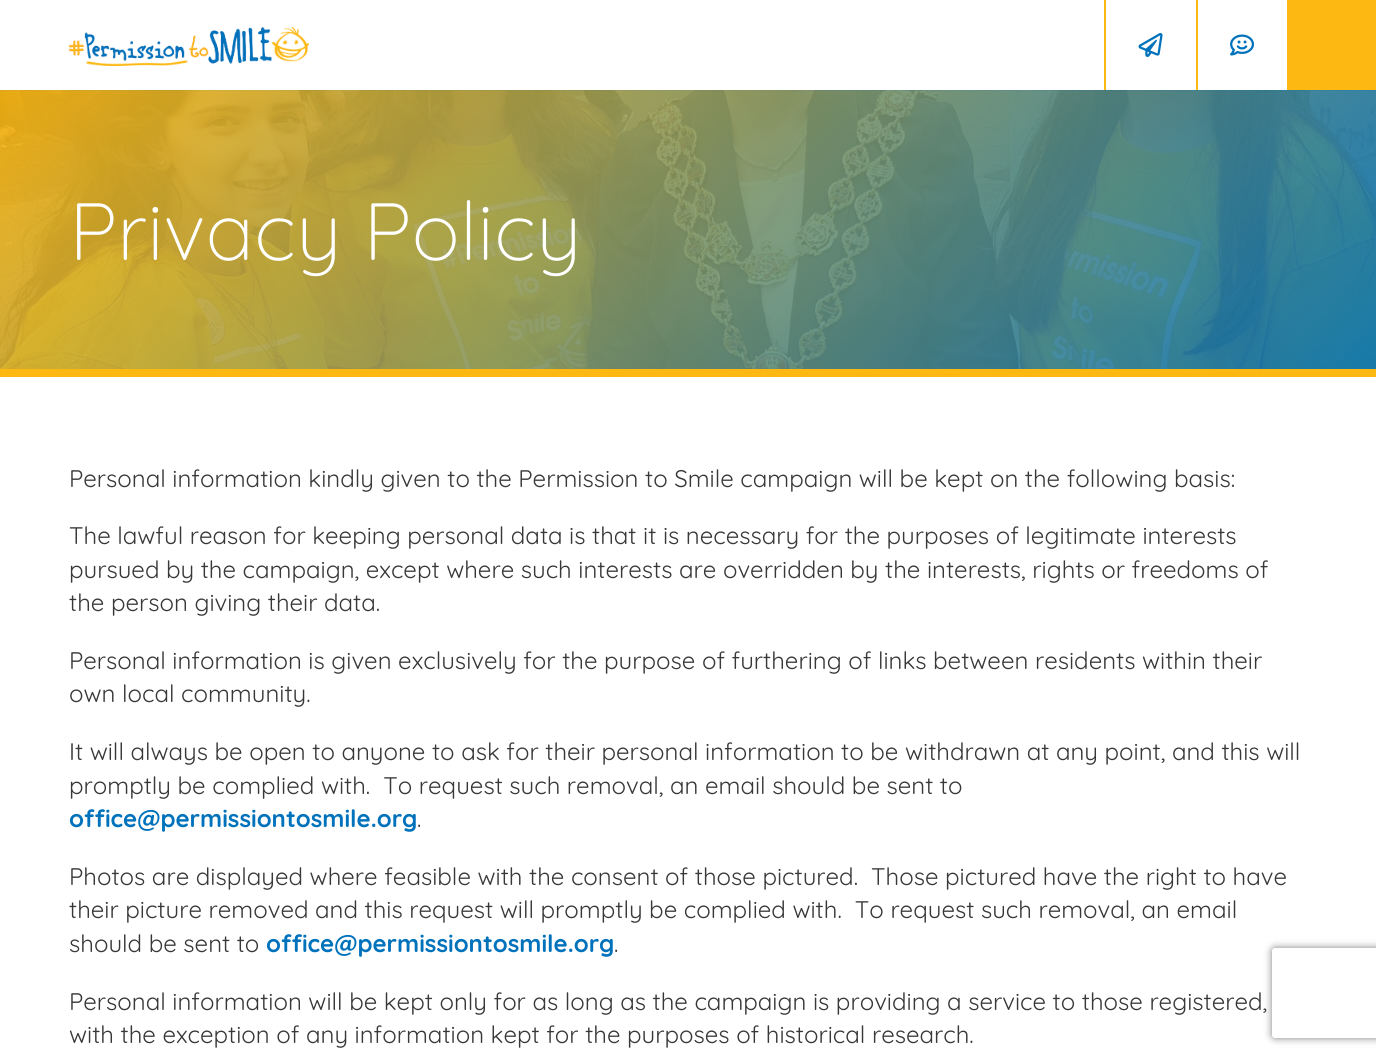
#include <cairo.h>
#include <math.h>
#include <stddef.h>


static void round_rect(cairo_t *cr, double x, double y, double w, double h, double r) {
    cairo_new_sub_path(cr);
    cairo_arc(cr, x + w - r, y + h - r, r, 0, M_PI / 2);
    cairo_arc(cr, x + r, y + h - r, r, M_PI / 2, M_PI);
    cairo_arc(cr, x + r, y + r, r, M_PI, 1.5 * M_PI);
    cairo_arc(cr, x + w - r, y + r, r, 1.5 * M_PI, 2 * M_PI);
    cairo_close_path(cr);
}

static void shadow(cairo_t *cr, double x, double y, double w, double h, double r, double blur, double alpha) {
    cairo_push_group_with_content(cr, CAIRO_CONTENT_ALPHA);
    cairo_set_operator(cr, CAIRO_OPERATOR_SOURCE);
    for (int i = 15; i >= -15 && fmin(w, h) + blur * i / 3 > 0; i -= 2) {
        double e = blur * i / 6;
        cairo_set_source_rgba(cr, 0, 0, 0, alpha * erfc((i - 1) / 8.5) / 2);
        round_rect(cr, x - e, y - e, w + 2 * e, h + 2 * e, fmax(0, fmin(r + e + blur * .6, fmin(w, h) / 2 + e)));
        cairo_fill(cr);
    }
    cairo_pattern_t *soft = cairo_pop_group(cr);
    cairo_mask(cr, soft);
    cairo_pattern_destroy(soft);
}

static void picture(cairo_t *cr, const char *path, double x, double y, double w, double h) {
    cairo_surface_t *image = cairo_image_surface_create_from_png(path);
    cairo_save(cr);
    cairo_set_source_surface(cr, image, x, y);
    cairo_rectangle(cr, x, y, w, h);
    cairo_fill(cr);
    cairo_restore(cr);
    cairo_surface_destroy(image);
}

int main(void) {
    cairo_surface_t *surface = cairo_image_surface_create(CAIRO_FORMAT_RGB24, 1376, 1058);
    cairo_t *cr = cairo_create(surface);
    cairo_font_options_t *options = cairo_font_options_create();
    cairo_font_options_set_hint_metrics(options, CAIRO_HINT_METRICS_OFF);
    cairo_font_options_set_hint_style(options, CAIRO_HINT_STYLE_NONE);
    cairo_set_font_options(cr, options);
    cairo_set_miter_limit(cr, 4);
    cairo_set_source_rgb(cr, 1, 1, 1);
    cairo_paint(cr);
    picture(cr, "img1.png", 69, 27, 240, 39);
    cairo_set_source_rgb(cr, 0.992, 0.722, 0.071);
    cairo_rectangle(cr, 1104, 0, 2, 90);
    cairo_fill(cr);
    picture(cr, "img2.png", 1138, 33, 25, 24);
    cairo_rectangle(cr, 1196, 0, 2, 90);
    cairo_fill(cr);
    picture(cr, "img3.png", 1230, 34, 24, 22);
    cairo_rectangle(cr, 1287, 0, 89, 90);
    cairo_fill(cr);
    picture(cr, "img4.png", 0, 90, 1376, 279);
    cairo_rectangle(cr, 0, 369, 1376, 8);
    cairo_fill(cr);
    cairo_select_font_face(cr, "Quicksand Light", CAIRO_FONT_SLANT_NORMAL, CAIRO_FONT_WEIGHT_NORMAL);
    cairo_set_font_size(cr, 81);
    cairo_set_source_rgb(cr, 1, 1, 1);
    cairo_move_to(cr, 69, 260);
    cairo_show_text(cr, "Privacy Policy");
    cairo_select_font_face(cr, "Quicksand", CAIRO_FONT_SLANT_NORMAL, CAIRO_FONT_WEIGHT_NORMAL);
    cairo_set_font_size(cr, 24);
    cairo_set_source_rgb(cr, 0.22, 0.22, 0.22);
    cairo_move_to(cr, 69, 487);
    cairo_show_text(cr, "Personal information kindly given to the Permission to Smile campaign will be kept on the following basis:");
    cairo_move_to(cr, 69, 544);
    cairo_show_text(cr, "The lawful reason for keeping personal data is that it is necessary for the purposes of legitimate interests");
    cairo_move_to(cr, 69, 578);
    cairo_show_text(cr, "pursued by the campaign, except where such interests are overridden by the interests, rights or freedoms of");
    cairo_move_to(cr, 69, 611);
    cairo_show_text(cr, "the person giving their data.");
    cairo_move_to(cr, 69, 669);
    cairo_show_text(cr, "Personal information is given exclusively for the purpose of furthering of links between residents within their");
    cairo_move_to(cr, 69, 702);
    cairo_show_text(cr, "own local community.");
    cairo_move_to(cr, 69, 760);
    cairo_show_text(cr, "It will always be open to anyone to ask for their personal information to be withdrawn at any point, and this will");
    cairo_move_to(cr, 69, 794);
    cairo_show_text(cr, "promptly be complied with.  To request such removal, an email should be sent to");
    cairo_select_font_face(cr, "Quicksand", CAIRO_FONT_SLANT_NORMAL, CAIRO_FONT_WEIGHT_BOLD);
    cairo_set_source_rgb(cr, 0, 0.447, 0.737);
    cairo_move_to(cr, 69, 827);
    cairo_show_text(cr, "office@permissiontosmile.org");
    cairo_select_font_face(cr, "Quicksand", CAIRO_FONT_SLANT_NORMAL, CAIRO_FONT_WEIGHT_NORMAL);
    cairo_set_source_rgb(cr, 0.22, 0.22, 0.22);
    cairo_move_to(cr, 417, 827);
    cairo_show_text(cr, ".");
    cairo_move_to(cr, 69, 885);
    cairo_show_text(cr, "Photos are displayed where feasible with the consent of those pictured.  Those pictured have the right to have");
    cairo_move_to(cr, 69, 918);
    cairo_show_text(cr, "their picture removed and this request will promptly be complied with.  To request such removal, an email");
    cairo_move_to(cr, 69, 952);
    cairo_show_text(cr, "should be sent to");
    cairo_select_font_face(cr, "Quicksand", CAIRO_FONT_SLANT_NORMAL, CAIRO_FONT_WEIGHT_BOLD);
    cairo_set_source_rgb(cr, 0, 0.447, 0.737);
    cairo_move_to(cr, 266, 952);
    cairo_show_text(cr, "office@permissiontosmile.org");
    cairo_select_font_face(cr, "Quicksand", CAIRO_FONT_SLANT_NORMAL, CAIRO_FONT_WEIGHT_NORMAL);
    cairo_set_source_rgb(cr, 0.22, 0.22, 0.22);
    cairo_move_to(cr, 614, 952);
    cairo_show_text(cr, ".");
    cairo_move_to(cr, 69, 1010);
    cairo_show_text(cr, "Personal information will be kept only for as long as the campaign is providing a service to those registered,");
    cairo_move_to(cr, 69, 1043);
    cairo_show_text(cr, "with the exception of any information kept for the purposes of historical research.");
    cairo_save(cr);
    cairo_set_fill_rule(cr, CAIRO_FILL_RULE_EVEN_ODD);
    cairo_new_path(cr);
    cairo_move_to(cr, 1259, 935);
    cairo_line_to(cr, 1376, 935);
    cairo_line_to(cr, 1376, 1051);
    cairo_line_to(cr, 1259, 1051);
    cairo_close_path(cr);
    cairo_move_to(cr, 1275, 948);
    cairo_line_to(cr, 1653, 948);
    cairo_curve_to(cr, 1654.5, 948, 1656, 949.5, 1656, 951);
    cairo_line_to(cr, 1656, 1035);
    cairo_curve_to(cr, 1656, 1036.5, 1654.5, 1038, 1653, 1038);
    cairo_line_to(cr, 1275, 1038);
    cairo_curve_to(cr, 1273.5, 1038, 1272, 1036.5, 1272, 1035);
    cairo_line_to(cr, 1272, 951);
    cairo_curve_to(cr, 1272, 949.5, 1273.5, 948, 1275, 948);
    cairo_close_path(cr);
    cairo_clip(cr);
    cairo_set_source_rgb(cr, 0.502, 0.502, 0.502);
    shadow(cr, 1272, 948, 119, 90, 3, 4, 1);
    cairo_restore(cr);
    cairo_surface_write_to_png(surface, "page.png");
    cairo_font_options_destroy(options);
    cairo_destroy(cr);
    cairo_surface_destroy(surface);
    return 0;
}
